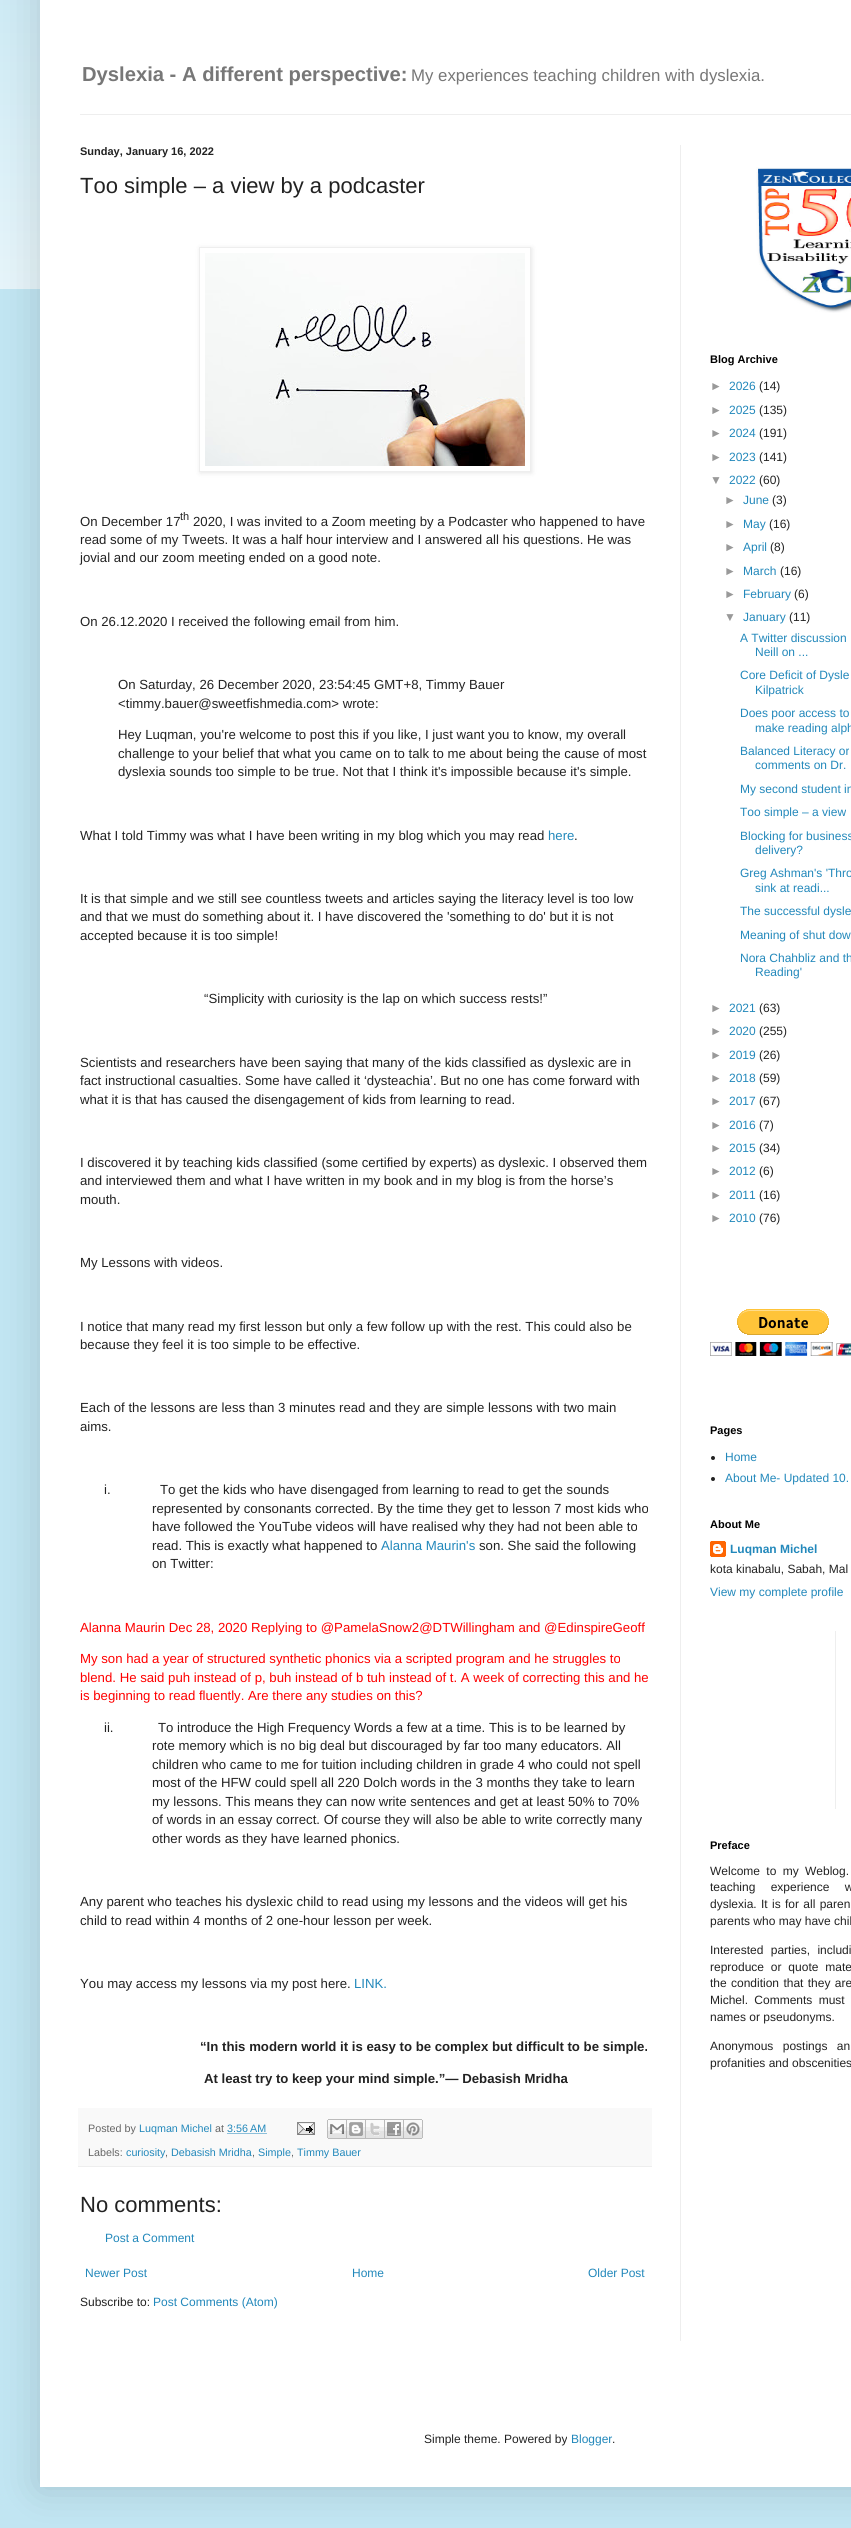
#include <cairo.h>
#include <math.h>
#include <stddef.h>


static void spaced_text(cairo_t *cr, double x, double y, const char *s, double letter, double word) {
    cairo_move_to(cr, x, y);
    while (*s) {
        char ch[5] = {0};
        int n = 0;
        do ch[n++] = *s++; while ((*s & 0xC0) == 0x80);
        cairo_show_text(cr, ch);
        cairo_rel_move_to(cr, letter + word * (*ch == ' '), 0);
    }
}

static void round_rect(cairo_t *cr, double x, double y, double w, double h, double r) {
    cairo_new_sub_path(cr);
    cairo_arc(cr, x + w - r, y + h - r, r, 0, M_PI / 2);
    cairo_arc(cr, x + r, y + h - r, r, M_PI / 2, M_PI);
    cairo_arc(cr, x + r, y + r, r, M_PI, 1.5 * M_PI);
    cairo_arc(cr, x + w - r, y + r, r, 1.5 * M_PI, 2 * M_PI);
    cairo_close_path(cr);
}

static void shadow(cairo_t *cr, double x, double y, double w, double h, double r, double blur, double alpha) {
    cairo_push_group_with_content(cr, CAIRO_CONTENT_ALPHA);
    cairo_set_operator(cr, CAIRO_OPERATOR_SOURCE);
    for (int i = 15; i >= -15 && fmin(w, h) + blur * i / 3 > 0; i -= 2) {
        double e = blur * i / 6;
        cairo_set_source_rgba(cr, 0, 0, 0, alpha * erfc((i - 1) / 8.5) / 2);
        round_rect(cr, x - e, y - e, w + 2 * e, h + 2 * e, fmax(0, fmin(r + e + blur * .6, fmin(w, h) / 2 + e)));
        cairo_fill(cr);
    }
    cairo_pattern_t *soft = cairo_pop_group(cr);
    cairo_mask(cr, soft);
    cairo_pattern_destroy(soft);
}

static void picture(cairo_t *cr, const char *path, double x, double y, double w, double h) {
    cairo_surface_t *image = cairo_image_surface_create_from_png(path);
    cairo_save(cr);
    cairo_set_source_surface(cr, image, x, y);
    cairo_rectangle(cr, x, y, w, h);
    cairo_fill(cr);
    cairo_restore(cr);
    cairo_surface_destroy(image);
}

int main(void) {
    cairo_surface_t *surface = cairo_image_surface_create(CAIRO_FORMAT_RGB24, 851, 2528);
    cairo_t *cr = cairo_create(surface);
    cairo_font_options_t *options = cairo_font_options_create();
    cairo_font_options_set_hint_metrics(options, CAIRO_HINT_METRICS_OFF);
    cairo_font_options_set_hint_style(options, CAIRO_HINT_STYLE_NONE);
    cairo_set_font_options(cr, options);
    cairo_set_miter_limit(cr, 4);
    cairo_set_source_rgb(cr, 0.757, 0.898, 0.949);
    cairo_paint(cr);
    picture(cr, "img1.png", 0, 0, 40, 289);
    cairo_set_source_rgb(cr, 0, 0, 0);
    shadow(cr, 40, -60, 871, 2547, 0, 20, 0.15);
    cairo_set_source_rgb(cr, 1, 1, 1);
    cairo_rectangle(cr, 40, 0, 811, 2487);
    cairo_fill(cr);
    cairo_select_font_face(cr, "Liberation Sans", CAIRO_FONT_SLANT_NORMAL, CAIRO_FONT_WEIGHT_BOLD);
    cairo_set_font_size(cr, 20.2);
    cairo_set_source_rgb(cr, 0.467, 0.467, 0.467);
    cairo_move_to(cr, 82, 81);
    cairo_show_text(cr, "Dyslexia - A different perspective:");
    cairo_select_font_face(cr, "Liberation Sans", CAIRO_FONT_SLANT_NORMAL, CAIRO_FONT_WEIGHT_NORMAL);
    cairo_set_font_size(cr, 16.8);
    cairo_move_to(cr, 411, 81);
    cairo_show_text(cr, "My experiences teaching children with dyslexia.");
    cairo_set_source_rgb(cr, 0.933, 0.933, 0.933);
    cairo_rectangle(cr, 80, 114, 771, 1);
    cairo_fill(cr);
    cairo_rectangle(cr, 680, 145, 1, 2196);
    cairo_fill(cr);
    cairo_select_font_face(cr, "Liberation Sans", CAIRO_FONT_SLANT_NORMAL, CAIRO_FONT_WEIGHT_BOLD);
    cairo_set_font_size(cr, 11);
    cairo_set_source_rgb(cr, 0.133, 0.133, 0.133);
    cairo_move_to(cr, 80, 155);
    cairo_show_text(cr, "Sunday, January 16, 2022");
    cairo_select_font_face(cr, "Liberation Sans", CAIRO_FONT_SLANT_NORMAL, CAIRO_FONT_WEIGHT_NORMAL);
    cairo_set_font_size(cr, 22);
    cairo_move_to(cr, 80, 193);
    cairo_show_text(cr, "Too simple – a view by a podcaster");
    cairo_save(cr);
    cairo_set_fill_rule(cr, CAIRO_FILL_RULE_EVEN_ODD);
    cairo_new_path(cr);
    cairo_move_to(cr, 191, 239);
    cairo_line_to(cr, 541, 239);
    cairo_line_to(cr, 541, 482);
    cairo_line_to(cr, 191, 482);
    cairo_close_path(cr);
    cairo_move_to(cr, 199, 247);
    cairo_line_to(cr, 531, 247);
    cairo_line_to(cr, 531, 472);
    cairo_line_to(cr, 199, 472);
    cairo_close_path(cr);
    cairo_clip(cr);
    cairo_set_source_rgb(cr, 0, 0, 0);
    shadow(cr, 200, 248, 332, 225, 0, 2.5, 0.1);
    cairo_restore(cr);
    cairo_rectangle(cr, 199.5, 247.5, 331, 224);
    cairo_set_source_rgb(cr, 0.933, 0.933, 0.933);
    cairo_set_line_width(cr, 1);
    cairo_stroke(cr);
    picture(cr, "img2.png", 205, 253, 320, 213);
    cairo_set_font_size(cr, 13.2);
    cairo_set_source_rgb(cr, 0.133, 0.133, 0.133);
    cairo_move_to(cr, 80, 526);
    cairo_show_text(cr, "On December 17");
    cairo_set_font_size(cr, 11);
    cairo_move_to(cr, 180, 520);
    cairo_show_text(cr, "th");
    cairo_set_font_size(cr, 13.2);
    cairo_move_to(cr, 193, 526);
    cairo_show_text(cr, "2020, I was invited to a Zoom meeting by a Podcaster who happened to have");
    cairo_move_to(cr, 80, 544);
    cairo_show_text(cr, "read some of my Tweets. It was a half hour interview and I answered all his questions. He was");
    cairo_move_to(cr, 80, 562);
    cairo_show_text(cr, "jovial and our zoom meeting ended on a good note.");
    cairo_move_to(cr, 80, 626);
    cairo_show_text(cr, "On 26.12.2020 I received the following email from him.");
    cairo_move_to(cr, 118, 689);
    cairo_show_text(cr, "On Saturday, 26 December 2020, 23:54:45 GMT+8, Timmy Bauer");
    cairo_move_to(cr, 118, 708);
    cairo_show_text(cr, "<timmy.bauer@sweetfishmedia.com> wrote:");
    cairo_move_to(cr, 118, 739);
    cairo_show_text(cr, "Hey Luqman, you're welcome to post this if you like, I just want you to know, my overall");
    cairo_move_to(cr, 118, 758);
    cairo_show_text(cr, "challenge to your belief that what you came on to talk to me about being the cause of most");
    cairo_move_to(cr, 118, 776);
    cairo_show_text(cr, "dyslexia sounds too simple to be true. Not that I think it's impossible because it's simple.");
    cairo_move_to(cr, 80, 840);
    cairo_show_text(cr, "What I told Timmy was what I have been writing in my blog which you may read");
    cairo_set_source_rgb(cr, 0.133, 0.533, 0.733);
    cairo_move_to(cr, 548, 840);
    cairo_show_text(cr, "here");
    cairo_set_source_rgb(cr, 0.133, 0.133, 0.133);
    cairo_move_to(cr, 574, 840);
    cairo_show_text(cr, ".");
    cairo_move_to(cr, 80, 903);
    cairo_show_text(cr, "It is that simple and we still see countless tweets and articles saying the literacy level is too low");
    cairo_move_to(cr, 80, 921);
    cairo_show_text(cr, "and that we must do something about it. I have discovered the 'something to do' but it is not");
    cairo_move_to(cr, 80, 940);
    cairo_show_text(cr, "accepted because it is too simple!");
    cairo_move_to(cr, 204, 1003);
    cairo_show_text(cr, "“Simplicity with curiosity is the lap on which success rests!”");
    cairo_move_to(cr, 80, 1067);
    cairo_show_text(cr, "Scientists and researchers have been saying that many of the kids classified as dyslexic are in");
    cairo_move_to(cr, 80, 1085);
    cairo_show_text(cr, "fact instructional casualties. Some have called it ‘dysteachia’. But no one has come forward with");
    cairo_move_to(cr, 80, 1104);
    cairo_show_text(cr, "what it is that has caused the disengagement of kids from learning to read.");
    cairo_move_to(cr, 80, 1167);
    cairo_show_text(cr, "I discovered it by teaching kids classified (some certified by experts) as dyslexic. I observed them");
    cairo_move_to(cr, 80, 1185);
    cairo_show_text(cr, "and interviewed them and what I have written in my book and in my blog is from the horse’s");
    cairo_move_to(cr, 80, 1204);
    cairo_show_text(cr, "mouth.");
    cairo_move_to(cr, 80, 1267);
    cairo_show_text(cr, "My Lessons with videos.");
    cairo_move_to(cr, 80, 1331);
    cairo_show_text(cr, "I notice that many read my first lesson but only a few follow up with the rest. This could also be");
    cairo_move_to(cr, 80, 1349);
    cairo_show_text(cr, "because they feel it is too simple to be effective.");
    cairo_move_to(cr, 80, 1412);
    cairo_show_text(cr, "Each of the lessons are less than 3 minutes read and they are simple lessons with two main");
    cairo_move_to(cr, 80, 1431);
    cairo_show_text(cr, "aims.");
    cairo_move_to(cr, 104, 1494);
    cairo_show_text(cr, "i.");
    cairo_move_to(cr, 160, 1494);
    cairo_show_text(cr, "To get the kids who have disengaged from learning to read to get the sounds");
    cairo_move_to(cr, 152, 1513);
    cairo_show_text(cr, "represented by consonants corrected. By the time they get to lesson 7 most kids who");
    cairo_move_to(cr, 152, 1531);
    cairo_show_text(cr, "have followed the YouTube videos will have realised why they had not been able to");
    cairo_move_to(cr, 152, 1550);
    cairo_show_text(cr, "read. This is exactly what happened to");
    cairo_set_source_rgb(cr, 0.133, 0.533, 0.733);
    cairo_move_to(cr, 381, 1550);
    cairo_show_text(cr, "Alanna Maurin's");
    cairo_set_source_rgb(cr, 0.133, 0.133, 0.133);
    cairo_move_to(cr, 479, 1550);
    cairo_show_text(cr, "son. She said the following");
    cairo_move_to(cr, 152, 1568);
    cairo_show_text(cr, "on Twitter:");
    cairo_set_source_rgb(cr, 1, 0, 0);
    cairo_move_to(cr, 80, 1632);
    cairo_show_text(cr, "Alanna Maurin Dec 28, 2020 Replying to @PamelaSnow2@DTWillingham and @EdinspireGeoff");
    cairo_move_to(cr, 80, 1663);
    cairo_show_text(cr, "My son had a year of structured synthetic phonics via a scripted program and he struggles to");
    cairo_move_to(cr, 80, 1682);
    cairo_show_text(cr, "blend. He said puh instead of p, buh instead of b tuh instead of t. A week of correcting this and he");
    cairo_move_to(cr, 80, 1700);
    cairo_show_text(cr, "is beginning to read fluently. Are there any studies on this?");
    cairo_set_source_rgb(cr, 0.133, 0.133, 0.133);
    cairo_move_to(cr, 104, 1732);
    cairo_show_text(cr, "ii.");
    cairo_move_to(cr, 158, 1732);
    cairo_show_text(cr, "To introduce the High Frequency Words a few at a time. This is to be learned by");
    cairo_move_to(cr, 152, 1750);
    cairo_show_text(cr, "rote memory which is no big deal but discouraged by far too many educators. All");
    cairo_move_to(cr, 152, 1769);
    cairo_show_text(cr, "children who came to me for tuition including children in grade 4 who could not spell");
    cairo_move_to(cr, 152, 1787);
    cairo_show_text(cr, "most of the HFW could spell all 220 Dolch words in the 3 months they take to learn");
    cairo_move_to(cr, 152, 1806);
    cairo_show_text(cr, "my lessons. This means they can now write sentences and get at least 50% to 70%");
    cairo_move_to(cr, 152, 1824);
    cairo_show_text(cr, "of words in an essay correct. Of course they will also be able to write correctly many");
    cairo_move_to(cr, 152, 1843);
    cairo_show_text(cr, "other words as they have learned phonics.");
    cairo_move_to(cr, 80, 1906);
    cairo_show_text(cr, "Any parent who teaches his dyslexic child to read using my lessons and the videos will get his");
    cairo_move_to(cr, 80, 1925);
    cairo_show_text(cr, "child to read within 4 months of 2 one-hour lesson per week.");
    cairo_move_to(cr, 80, 1988);
    cairo_show_text(cr, "You may access my lessons via my post here.");
    cairo_set_source_rgb(cr, 0.133, 0.533, 0.733);
    cairo_move_to(cr, 354, 1988);
    cairo_show_text(cr, "LINK.");
    cairo_select_font_face(cr, "Liberation Sans", CAIRO_FONT_SLANT_NORMAL, CAIRO_FONT_WEIGHT_BOLD);
    cairo_set_source_rgb(cr, 0.133, 0.133, 0.133);
    cairo_move_to(cr, 200, 2051);
    cairo_show_text(cr, "“In this modern world it is easy to be complex but difficult to be simple.");
    cairo_move_to(cr, 204, 2083);
    cairo_show_text(cr, "At least try to keep your mind simple.”― Debasish Mridha");
    cairo_set_source_rgb(cr, 0.976, 0.976, 0.976);
    cairo_rectangle(cr, 78, 2108, 574, 58);
    cairo_fill(cr);
    cairo_set_source_rgb(cr, 0.933, 0.933, 0.933);
    cairo_rectangle(cr, 78, 2166, 574, 1);
    cairo_fill(cr);
    cairo_select_font_face(cr, "Liberation Sans", CAIRO_FONT_SLANT_NORMAL, CAIRO_FONT_WEIGHT_NORMAL);
    cairo_set_font_size(cr, 10.75);
    cairo_set_source_rgb(cr, 0.4, 0.4, 0.4);
    cairo_move_to(cr, 88, 2132);
    cairo_show_text(cr, "Posted by");
    cairo_set_source_rgb(cr, 0.133, 0.533, 0.733);
    cairo_move_to(cr, 139, 2132);
    cairo_show_text(cr, "Luqman Michel");
    cairo_set_source_rgb(cr, 0.4, 0.4, 0.4);
    cairo_move_to(cr, 215, 2132);
    cairo_show_text(cr, "at");
    cairo_set_source_rgb(cr, 0.133, 0.533, 0.733);
    cairo_move_to(cr, 227, 2132);
    cairo_show_text(cr, "3:56 AM");
    cairo_new_path(cr);
    cairo_move_to(cr, 227.5, 2133.5);
    cairo_line_to(cr, 266.5, 2133.5);
    cairo_set_dash(cr, (double[]){1, 1}, 2, 0);
    cairo_stroke(cr);
    picture(cr, "img3.png", 297, 2122, 18, 13);
    picture(cr, "img4.png", 327, 2119, 20, 20);
    picture(cr, "img5.png", 347, 2119, 19, 20);
    picture(cr, "img6.png", 366, 2119, 19, 20);
    picture(cr, "img7.png", 385, 2119, 19, 20);
    picture(cr, "img8.png", 404, 2119, 19, 20);
    cairo_set_source_rgb(cr, 0.4, 0.4, 0.4);
    cairo_move_to(cr, 88, 2156);
    cairo_show_text(cr, "Labels:");
    cairo_set_source_rgb(cr, 0.133, 0.533, 0.733);
    cairo_move_to(cr, 126, 2156);
    cairo_show_text(cr, "curiosity");
    cairo_set_source_rgb(cr, 0.4, 0.4, 0.4);
    cairo_move_to(cr, 165, 2156);
    cairo_show_text(cr, ",");
    cairo_set_source_rgb(cr, 0.133, 0.533, 0.733);
    cairo_move_to(cr, 171, 2156);
    cairo_show_text(cr, "Debasish Mridha");
    cairo_set_source_rgb(cr, 0.4, 0.4, 0.4);
    cairo_move_to(cr, 252, 2156);
    cairo_show_text(cr, ",");
    cairo_set_source_rgb(cr, 0.133, 0.533, 0.733);
    cairo_move_to(cr, 258, 2156);
    cairo_show_text(cr, "Simple");
    cairo_set_source_rgb(cr, 0.4, 0.4, 0.4);
    cairo_move_to(cr, 291, 2156);
    cairo_show_text(cr, ",");
    cairo_set_source_rgb(cr, 0.133, 0.533, 0.733);
    cairo_move_to(cr, 297, 2156);
    cairo_show_text(cr, "Timmy Bauer");
    cairo_set_font_size(cr, 22);
    cairo_set_source_rgb(cr, 0.133, 0.133, 0.133);
    cairo_move_to(cr, 80, 2212);
    cairo_show_text(cr, "No comments:");
    cairo_set_font_size(cr, 12);
    cairo_set_source_rgb(cr, 0.133, 0.533, 0.733);
    cairo_move_to(cr, 105, 2242);
    cairo_show_text(cr, "Post a Comment");
    cairo_move_to(cr, 85, 2277);
    cairo_show_text(cr, "Newer Post");
    cairo_move_to(cr, 352, 2277);
    cairo_show_text(cr, "Home");
    cairo_move_to(cr, 588, 2277);
    cairo_show_text(cr, "Older Post");
    cairo_set_source_rgb(cr, 0.133, 0.133, 0.133);
    cairo_move_to(cr, 80, 2306);
    cairo_show_text(cr, "Subscribe to:");
    cairo_set_source_rgb(cr, 0.133, 0.533, 0.733);
    cairo_move_to(cr, 153, 2306);
    cairo_show_text(cr, "Post Comments (Atom)");
    picture(cr, "img9.png", 756, 167, 95, 146);
    cairo_select_font_face(cr, "Liberation Sans", CAIRO_FONT_SLANT_NORMAL, CAIRO_FONT_WEIGHT_BOLD);
    cairo_set_font_size(cr, 11);
    cairo_set_source_rgb(cr, 0, 0, 0);
    cairo_move_to(cr, 710, 363);
    cairo_show_text(cr, "Blog Archive");
    cairo_select_font_face(cr, "Liberation Sans", CAIRO_FONT_SLANT_NORMAL, CAIRO_FONT_WEIGHT_NORMAL);
    cairo_set_font_size(cr, 12);
    cairo_set_source_rgb(cr, 0.6, 0.6, 0.6);
    cairo_move_to(cr, 710, 390);
    cairo_show_text(cr, "►");
    cairo_set_source_rgb(cr, 0.133, 0.533, 0.733);
    cairo_move_to(cr, 729, 390);
    cairo_show_text(cr, "2026");
    cairo_set_source_rgb(cr, 0.133, 0.133, 0.133);
    cairo_move_to(cr, 759, 390);
    cairo_show_text(cr, "(14)");
    cairo_set_source_rgb(cr, 0.6, 0.6, 0.6);
    cairo_move_to(cr, 710, 414);
    cairo_show_text(cr, "►");
    cairo_set_source_rgb(cr, 0.133, 0.533, 0.733);
    cairo_move_to(cr, 729, 414);
    cairo_show_text(cr, "2025");
    cairo_set_source_rgb(cr, 0.133, 0.133, 0.133);
    cairo_move_to(cr, 759, 414);
    cairo_show_text(cr, "(135)");
    cairo_set_source_rgb(cr, 0.6, 0.6, 0.6);
    cairo_move_to(cr, 710, 437);
    cairo_show_text(cr, "►");
    cairo_set_source_rgb(cr, 0.133, 0.533, 0.733);
    cairo_move_to(cr, 729, 437);
    cairo_show_text(cr, "2024");
    cairo_set_source_rgb(cr, 0.133, 0.133, 0.133);
    cairo_move_to(cr, 759, 437);
    cairo_show_text(cr, "(191)");
    cairo_set_source_rgb(cr, 0.6, 0.6, 0.6);
    cairo_move_to(cr, 710, 461);
    cairo_show_text(cr, "►");
    cairo_set_source_rgb(cr, 0.133, 0.533, 0.733);
    cairo_move_to(cr, 729, 461);
    cairo_show_text(cr, "2023");
    cairo_set_source_rgb(cr, 0.133, 0.133, 0.133);
    cairo_move_to(cr, 759, 461);
    cairo_show_text(cr, "(141)");
    cairo_set_source_rgb(cr, 0.6, 0.6, 0.6);
    cairo_move_to(cr, 710, 484);
    cairo_show_text(cr, "▼");
    cairo_set_source_rgb(cr, 0.133, 0.533, 0.733);
    cairo_move_to(cr, 729, 484);
    cairo_show_text(cr, "2022");
    cairo_set_source_rgb(cr, 0.133, 0.133, 0.133);
    cairo_move_to(cr, 759, 484);
    cairo_show_text(cr, "(60)");
    cairo_set_source_rgb(cr, 0.6, 0.6, 0.6);
    cairo_move_to(cr, 724, 504);
    cairo_show_text(cr, "►");
    cairo_set_source_rgb(cr, 0.133, 0.533, 0.733);
    cairo_move_to(cr, 743, 504);
    cairo_show_text(cr, "June");
    cairo_set_source_rgb(cr, 0.133, 0.133, 0.133);
    cairo_move_to(cr, 772, 504);
    cairo_show_text(cr, "(3)");
    cairo_set_source_rgb(cr, 0.6, 0.6, 0.6);
    cairo_move_to(cr, 724, 528);
    cairo_show_text(cr, "►");
    cairo_set_source_rgb(cr, 0.133, 0.533, 0.733);
    cairo_move_to(cr, 743, 528);
    cairo_show_text(cr, "May");
    cairo_set_source_rgb(cr, 0.133, 0.133, 0.133);
    cairo_move_to(cr, 769, 528);
    cairo_show_text(cr, "(16)");
    cairo_set_source_rgb(cr, 0.6, 0.6, 0.6);
    cairo_move_to(cr, 724, 551);
    cairo_show_text(cr, "►");
    cairo_set_source_rgb(cr, 0.133, 0.533, 0.733);
    cairo_move_to(cr, 743, 551);
    cairo_show_text(cr, "April");
    cairo_set_source_rgb(cr, 0.133, 0.133, 0.133);
    cairo_move_to(cr, 770, 551);
    cairo_show_text(cr, "(8)");
    cairo_set_source_rgb(cr, 0.6, 0.6, 0.6);
    cairo_move_to(cr, 724, 575);
    cairo_show_text(cr, "►");
    cairo_set_source_rgb(cr, 0.133, 0.533, 0.733);
    cairo_move_to(cr, 743, 575);
    cairo_show_text(cr, "March");
    cairo_set_source_rgb(cr, 0.133, 0.133, 0.133);
    cairo_move_to(cr, 780, 575);
    cairo_show_text(cr, "(16)");
    cairo_set_source_rgb(cr, 0.6, 0.6, 0.6);
    cairo_move_to(cr, 724, 598);
    cairo_show_text(cr, "►");
    cairo_set_source_rgb(cr, 0.133, 0.533, 0.733);
    cairo_move_to(cr, 743, 598);
    cairo_show_text(cr, "February");
    cairo_set_source_rgb(cr, 0.133, 0.133, 0.133);
    cairo_move_to(cr, 794, 598);
    cairo_show_text(cr, "(6)");
    cairo_set_source_rgb(cr, 0.6, 0.6, 0.6);
    cairo_move_to(cr, 724, 621);
    cairo_show_text(cr, "▼");
    cairo_set_source_rgb(cr, 0.133, 0.533, 0.733);
    cairo_move_to(cr, 743, 621);
    cairo_show_text(cr, "January");
    cairo_set_source_rgb(cr, 0.133, 0.133, 0.133);
    cairo_move_to(cr, 789, 621);
    cairo_show_text(cr, "(11)");
    cairo_set_source_rgb(cr, 0.133, 0.533, 0.733);
    cairo_move_to(cr, 740, 642);
    cairo_show_text(cr, "A Twitter discussion");
    cairo_move_to(cr, 755, 656);
    cairo_show_text(cr, "Neill on ...");
    cairo_move_to(cr, 740, 679);
    cairo_show_text(cr, "Core Deficit of Dysle");
    cairo_move_to(cr, 755, 694);
    cairo_show_text(cr, "Kilpatrick");
    cairo_move_to(cr, 740, 717);
    cairo_show_text(cr, "Does poor access to");
    cairo_move_to(cr, 755, 732);
    cairo_show_text(cr, "make reading alph");
    cairo_move_to(cr, 740, 755);
    cairo_show_text(cr, "Balanced Literacy or");
    cairo_move_to(cr, 755, 769);
    cairo_show_text(cr, "comments on Dr.");
    cairo_move_to(cr, 740, 793);
    cairo_show_text(cr, "My second student in");
    cairo_move_to(cr, 740, 816);
    cairo_show_text(cr, "Too simple – a view");
    cairo_move_to(cr, 740, 840);
    cairo_show_text(cr, "Blocking for business");
    cairo_move_to(cr, 755, 854);
    cairo_show_text(cr, "delivery?");
    cairo_move_to(cr, 740, 877);
    cairo_show_text(cr, "Greg Ashman's 'Thro");
    cairo_move_to(cr, 755, 892);
    cairo_show_text(cr, "sink at readi...");
    cairo_move_to(cr, 740, 915);
    cairo_show_text(cr, "The successful dysle");
    cairo_move_to(cr, 740, 939);
    cairo_show_text(cr, "Meaning of shut dow");
    cairo_move_to(cr, 740, 962);
    cairo_show_text(cr, "Nora Chahbliz and th");
    cairo_move_to(cr, 755, 976);
    cairo_show_text(cr, "Reading'");
    cairo_set_source_rgb(cr, 0.6, 0.6, 0.6);
    cairo_move_to(cr, 710, 1012);
    cairo_show_text(cr, "►");
    cairo_set_source_rgb(cr, 0.133, 0.533, 0.733);
    cairo_move_to(cr, 729, 1012);
    cairo_show_text(cr, "2021");
    cairo_set_source_rgb(cr, 0.133, 0.133, 0.133);
    cairo_move_to(cr, 759, 1012);
    cairo_show_text(cr, "(63)");
    cairo_set_source_rgb(cr, 0.6, 0.6, 0.6);
    cairo_move_to(cr, 710, 1035);
    cairo_show_text(cr, "►");
    cairo_set_source_rgb(cr, 0.133, 0.533, 0.733);
    cairo_move_to(cr, 729, 1035);
    cairo_show_text(cr, "2020");
    cairo_set_source_rgb(cr, 0.133, 0.133, 0.133);
    cairo_move_to(cr, 759, 1035);
    cairo_show_text(cr, "(255)");
    cairo_set_source_rgb(cr, 0.6, 0.6, 0.6);
    cairo_move_to(cr, 710, 1059);
    cairo_show_text(cr, "►");
    cairo_set_source_rgb(cr, 0.133, 0.533, 0.733);
    cairo_move_to(cr, 729, 1059);
    cairo_show_text(cr, "2019");
    cairo_set_source_rgb(cr, 0.133, 0.133, 0.133);
    cairo_move_to(cr, 759, 1059);
    cairo_show_text(cr, "(26)");
    cairo_set_source_rgb(cr, 0.6, 0.6, 0.6);
    cairo_move_to(cr, 710, 1082);
    cairo_show_text(cr, "►");
    cairo_set_source_rgb(cr, 0.133, 0.533, 0.733);
    cairo_move_to(cr, 729, 1082);
    cairo_show_text(cr, "2018");
    cairo_set_source_rgb(cr, 0.133, 0.133, 0.133);
    cairo_move_to(cr, 759, 1082);
    cairo_show_text(cr, "(59)");
    cairo_set_source_rgb(cr, 0.6, 0.6, 0.6);
    cairo_move_to(cr, 710, 1105);
    cairo_show_text(cr, "►");
    cairo_set_source_rgb(cr, 0.133, 0.533, 0.733);
    cairo_move_to(cr, 729, 1105);
    cairo_show_text(cr, "2017");
    cairo_set_source_rgb(cr, 0.133, 0.133, 0.133);
    cairo_move_to(cr, 759, 1105);
    cairo_show_text(cr, "(67)");
    cairo_set_source_rgb(cr, 0.6, 0.6, 0.6);
    cairo_move_to(cr, 710, 1129);
    cairo_show_text(cr, "►");
    cairo_set_source_rgb(cr, 0.133, 0.533, 0.733);
    cairo_move_to(cr, 729, 1129);
    cairo_show_text(cr, "2016");
    cairo_set_source_rgb(cr, 0.133, 0.133, 0.133);
    cairo_move_to(cr, 759, 1129);
    cairo_show_text(cr, "(7)");
    cairo_set_source_rgb(cr, 0.6, 0.6, 0.6);
    cairo_move_to(cr, 710, 1152);
    cairo_show_text(cr, "►");
    cairo_set_source_rgb(cr, 0.133, 0.533, 0.733);
    cairo_move_to(cr, 729, 1152);
    cairo_show_text(cr, "2015");
    cairo_set_source_rgb(cr, 0.133, 0.133, 0.133);
    cairo_move_to(cr, 759, 1152);
    cairo_show_text(cr, "(34)");
    cairo_set_source_rgb(cr, 0.6, 0.6, 0.6);
    cairo_move_to(cr, 710, 1175);
    cairo_show_text(cr, "►");
    cairo_set_source_rgb(cr, 0.133, 0.533, 0.733);
    cairo_move_to(cr, 729, 1175);
    cairo_show_text(cr, "2012");
    cairo_set_source_rgb(cr, 0.133, 0.133, 0.133);
    cairo_move_to(cr, 759, 1175);
    cairo_show_text(cr, "(6)");
    cairo_set_source_rgb(cr, 0.6, 0.6, 0.6);
    cairo_move_to(cr, 710, 1199);
    cairo_show_text(cr, "►");
    cairo_set_source_rgb(cr, 0.133, 0.533, 0.733);
    cairo_move_to(cr, 729, 1199);
    cairo_show_text(cr, "2011");
    cairo_set_source_rgb(cr, 0.133, 0.133, 0.133);
    cairo_move_to(cr, 759, 1199);
    cairo_show_text(cr, "(16)");
    cairo_set_source_rgb(cr, 0.6, 0.6, 0.6);
    cairo_move_to(cr, 710, 1222);
    cairo_show_text(cr, "►");
    cairo_set_source_rgb(cr, 0.133, 0.533, 0.733);
    cairo_move_to(cr, 729, 1222);
    cairo_show_text(cr, "2010");
    cairo_set_source_rgb(cr, 0.133, 0.133, 0.133);
    cairo_move_to(cr, 759, 1222);
    cairo_show_text(cr, "(76)");
    picture(cr, "img10.png", 710, 1309, 141, 47);
    cairo_select_font_face(cr, "Liberation Sans", CAIRO_FONT_SLANT_NORMAL, CAIRO_FONT_WEIGHT_BOLD);
    cairo_set_font_size(cr, 11);
    cairo_set_source_rgb(cr, 0, 0, 0);
    cairo_move_to(cr, 710, 1434);
    cairo_show_text(cr, "Pages");
    cairo_set_source_rgb(cr, 0.133, 0.133, 0.133);
    cairo_new_path(cr);
    cairo_arc(cr, 713, 1458, 2, 0, 2 * M_PI);
    cairo_fill(cr);
    cairo_select_font_face(cr, "Liberation Sans", CAIRO_FONT_SLANT_NORMAL, CAIRO_FONT_WEIGHT_NORMAL);
    cairo_set_font_size(cr, 12);
    cairo_set_source_rgb(cr, 0.133, 0.533, 0.733);
    cairo_move_to(cr, 725, 1461);
    cairo_show_text(cr, "Home");
    cairo_set_source_rgb(cr, 0.133, 0.133, 0.133);
    cairo_new_path(cr);
    cairo_arc(cr, 713, 1479, 2, 0, 2 * M_PI);
    cairo_fill(cr);
    cairo_set_source_rgb(cr, 0.133, 0.533, 0.733);
    cairo_move_to(cr, 725, 1482);
    cairo_show_text(cr, "About Me- Updated 10.");
    cairo_select_font_face(cr, "Liberation Sans", CAIRO_FONT_SLANT_NORMAL, CAIRO_FONT_WEIGHT_BOLD);
    cairo_set_font_size(cr, 11);
    cairo_set_source_rgb(cr, 0, 0, 0);
    cairo_move_to(cr, 710, 1528);
    cairo_show_text(cr, "About Me");
    picture(cr, "img11.png", 710, 1541, 16, 16);
    cairo_set_font_size(cr, 12);
    cairo_set_source_rgb(cr, 0.133, 0.533, 0.733);
    cairo_move_to(cr, 730, 1553);
    cairo_show_text(cr, "Luqman Michel");
    cairo_select_font_face(cr, "Liberation Sans", CAIRO_FONT_SLANT_NORMAL, CAIRO_FONT_WEIGHT_NORMAL);
    cairo_set_source_rgb(cr, 0.133, 0.133, 0.133);
    cairo_move_to(cr, 710, 1573);
    cairo_show_text(cr, "kota kinabalu, Sabah, Mal");
    cairo_set_source_rgb(cr, 0.133, 0.533, 0.733);
    cairo_move_to(cr, 710, 1596);
    cairo_show_text(cr, "View my complete profile");
    cairo_set_source_rgb(cr, 0.933, 0.933, 0.933);
    cairo_rectangle(cr, 835, 1631, 1, 178);
    cairo_fill(cr);
    cairo_select_font_face(cr, "Liberation Sans", CAIRO_FONT_SLANT_NORMAL, CAIRO_FONT_WEIGHT_BOLD);
    cairo_set_font_size(cr, 11);
    cairo_set_source_rgb(cr, 0, 0, 0);
    cairo_move_to(cr, 710, 1849);
    cairo_show_text(cr, "Preface");
    cairo_select_font_face(cr, "Liberation Sans", CAIRO_FONT_SLANT_NORMAL, CAIRO_FONT_WEIGHT_NORMAL);
    cairo_set_font_size(cr, 12);
    cairo_set_source_rgb(cr, 0.133, 0.133, 0.133);
    spaced_text(cr, 710, 1875, "Welcome to my Weblog.", 0, 3);
    spaced_text(cr, 710, 1891, "teaching experience w", 0, 12);
    spaced_text(cr, 710, 1908, "dyslexia. It is for all paren", 0, 1);
    cairo_move_to(cr, 710, 1925);
    cairo_show_text(cr, "parents who may have chil");
    spaced_text(cr, 710, 1954, "Interested parties, includi", 0, 4);
    spaced_text(cr, 710, 1971, "reproduce or quote mate", 0, 3.5);
    spaced_text(cr, 710, 1987, "the condition that they are", 0, 1);
    spaced_text(cr, 710, 2004, "Michel. Comments must", 0, 3);
    cairo_move_to(cr, 710, 2021);
    cairo_show_text(cr, "names or pseudonyms.");
    spaced_text(cr, 710, 2050, "Anonymous postings an", 0, 6);
    cairo_move_to(cr, 710, 2067);
    cairo_show_text(cr, "profanities and obscenities");
    cairo_move_to(cr, 424, 2443);
    cairo_show_text(cr, "Simple theme. Powered by");
    cairo_set_source_rgb(cr, 0.133, 0.533, 0.733);
    cairo_move_to(cr, 571, 2443);
    cairo_show_text(cr, "Blogger");
    cairo_set_source_rgb(cr, 0.133, 0.133, 0.133);
    cairo_move_to(cr, 612, 2443);
    cairo_show_text(cr, ".");
    cairo_surface_write_to_png(surface, "page.png");
    cairo_font_options_destroy(options);
    cairo_destroy(cr);
    cairo_surface_destroy(surface);
    return 0;
}
